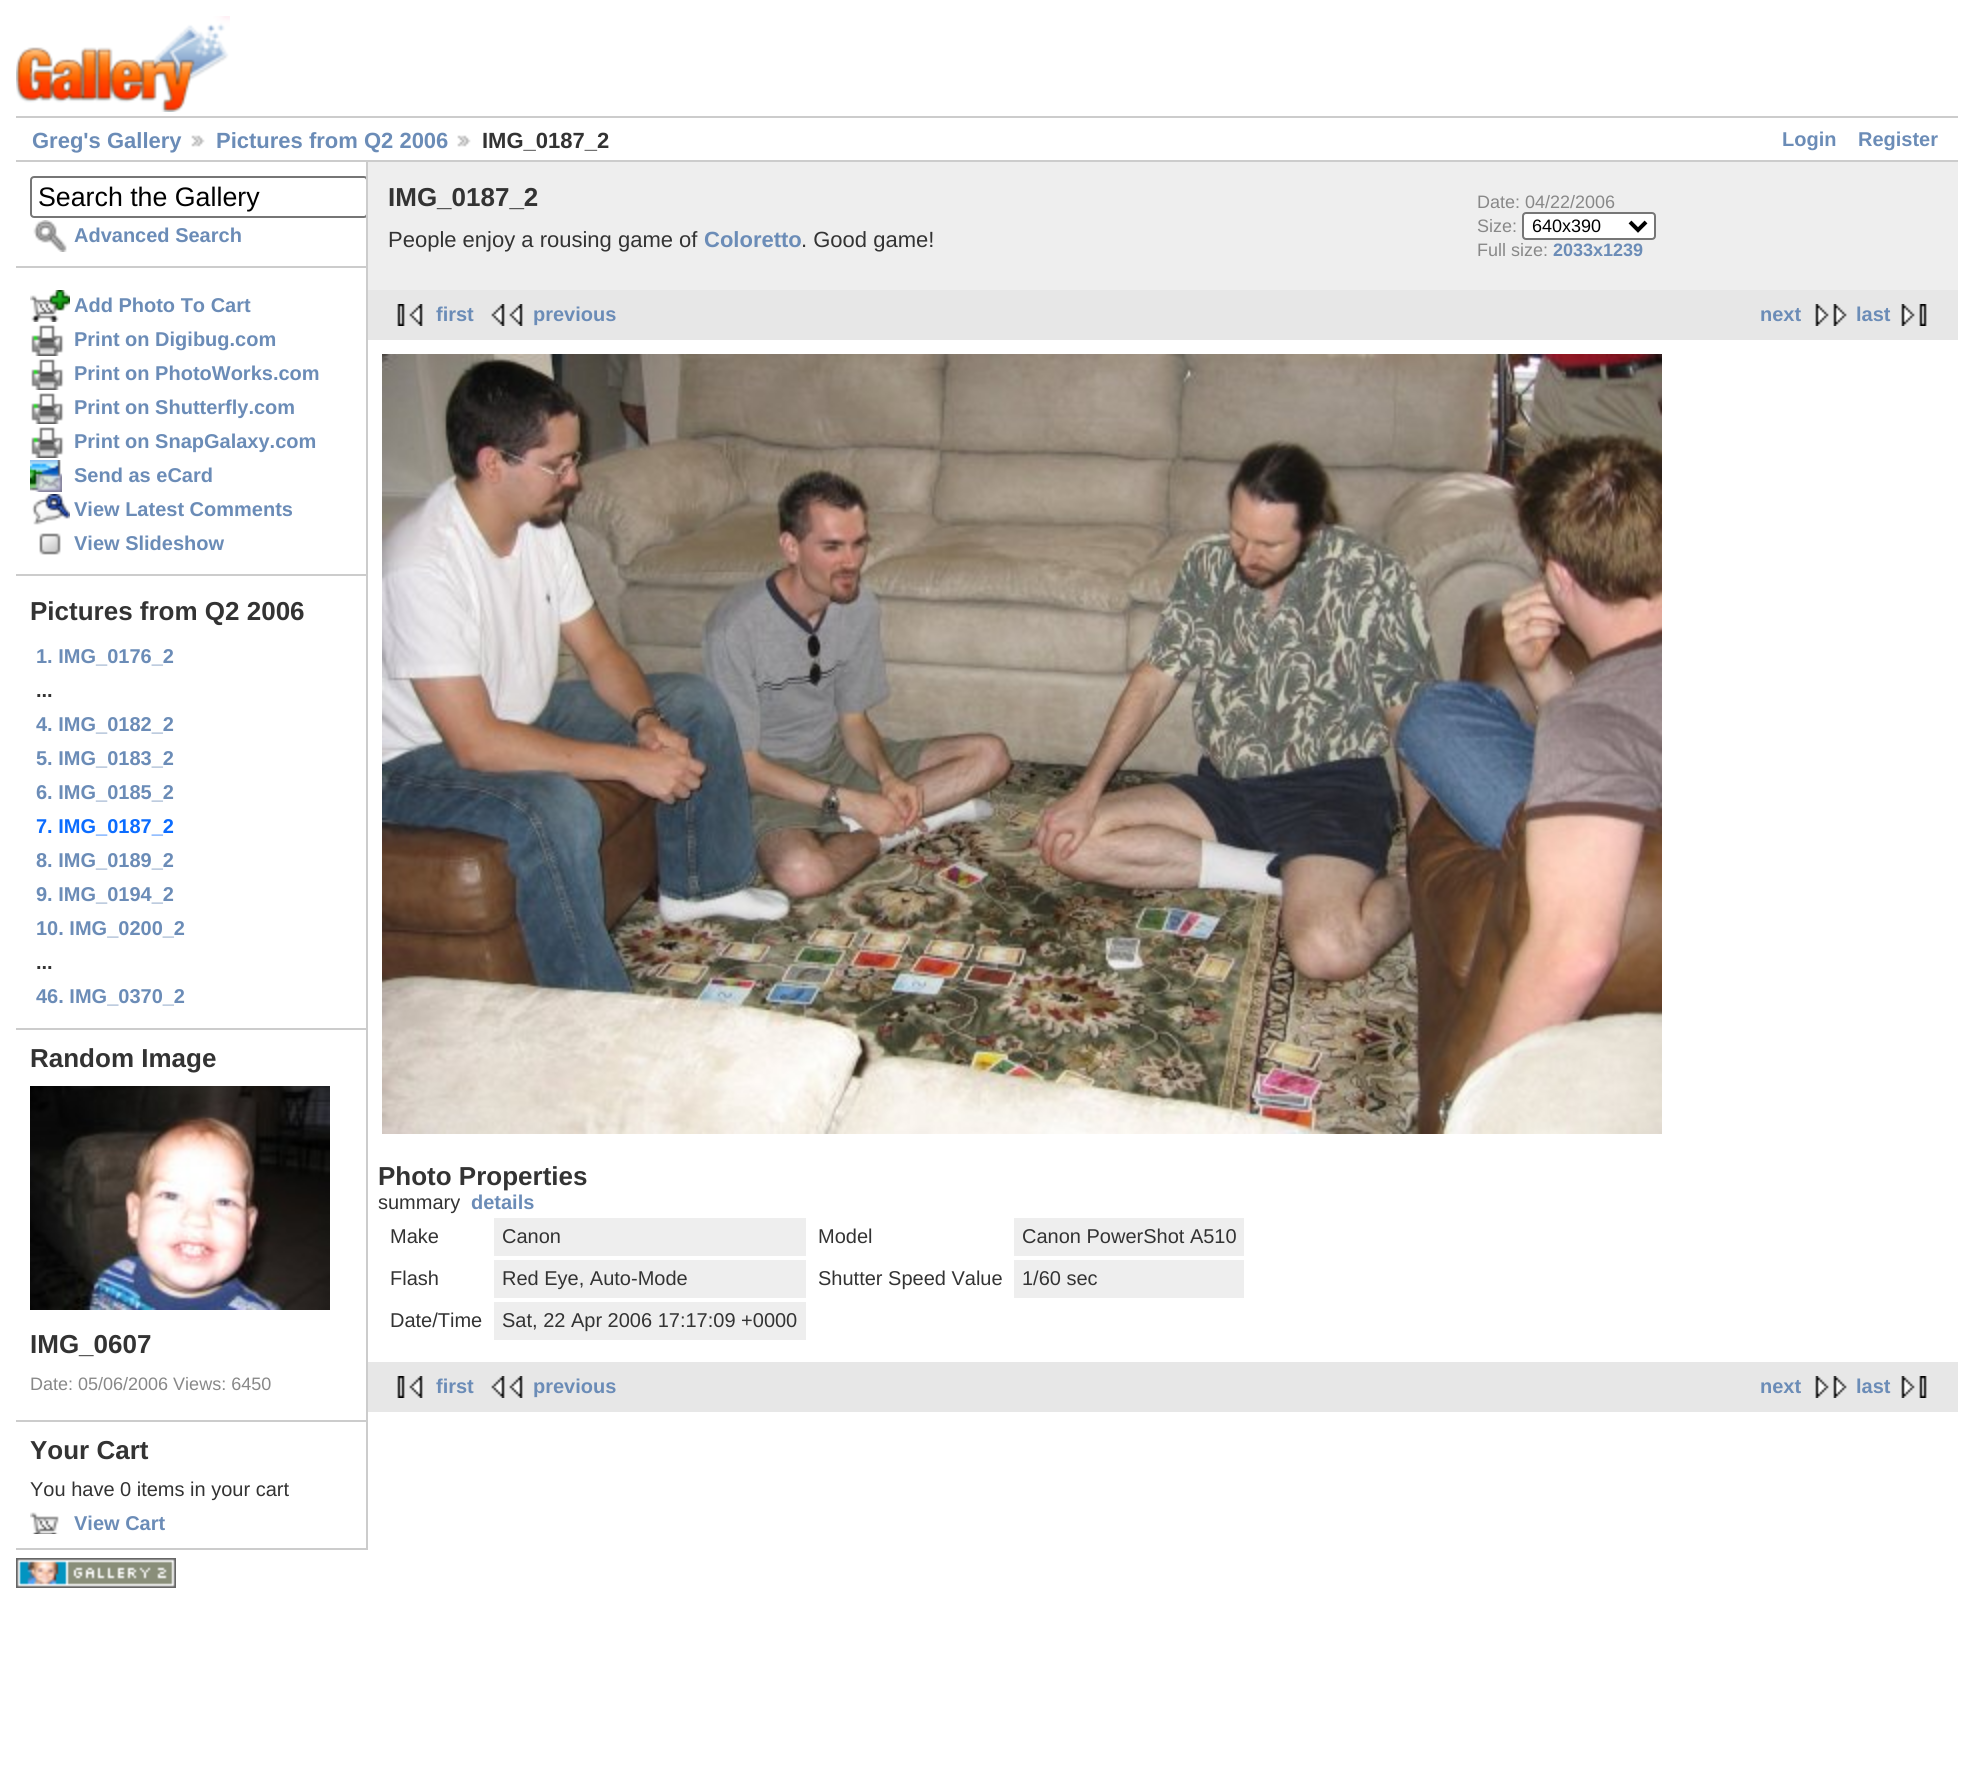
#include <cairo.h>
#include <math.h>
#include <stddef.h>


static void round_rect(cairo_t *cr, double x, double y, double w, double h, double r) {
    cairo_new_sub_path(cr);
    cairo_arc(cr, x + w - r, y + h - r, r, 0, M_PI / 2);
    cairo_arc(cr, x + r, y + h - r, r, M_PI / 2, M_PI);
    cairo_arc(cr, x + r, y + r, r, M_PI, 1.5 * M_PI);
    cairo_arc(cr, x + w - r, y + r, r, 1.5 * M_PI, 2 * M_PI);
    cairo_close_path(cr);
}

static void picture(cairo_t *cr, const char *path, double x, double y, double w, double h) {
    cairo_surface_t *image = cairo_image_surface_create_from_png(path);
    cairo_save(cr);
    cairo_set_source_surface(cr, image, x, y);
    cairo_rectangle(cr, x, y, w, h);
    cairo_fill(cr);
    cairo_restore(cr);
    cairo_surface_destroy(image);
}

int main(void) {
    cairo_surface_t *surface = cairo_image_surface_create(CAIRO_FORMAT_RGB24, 1974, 1792);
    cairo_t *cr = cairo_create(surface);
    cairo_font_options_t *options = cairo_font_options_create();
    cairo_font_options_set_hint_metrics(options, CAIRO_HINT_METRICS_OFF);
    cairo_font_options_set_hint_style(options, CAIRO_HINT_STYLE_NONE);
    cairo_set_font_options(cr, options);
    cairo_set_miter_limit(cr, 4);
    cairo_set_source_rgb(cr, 1, 1, 1);
    cairo_paint(cr);
    picture(cr, "img1.png", 16, 16, 214, 96);
    cairo_set_source_rgb(cr, 0.8, 0.8, 0.8);
    cairo_rectangle(cr, 16, 116, 1942, 2);
    cairo_fill(cr);
    cairo_rectangle(cr, 16, 160, 1942, 2);
    cairo_fill(cr);
    cairo_select_font_face(cr, "Liberation Sans", CAIRO_FONT_SLANT_NORMAL, CAIRO_FONT_WEIGHT_BOLD);
    cairo_set_font_size(cr, 22);
    cairo_set_source_rgb(cr, 0.42, 0.549, 0.718);
    cairo_move_to(cr, 32, 148);
    cairo_show_text(cr, "Greg's Gallery");
    picture(cr, "img2.png", 191, 135, 14, 12);
    cairo_move_to(cr, 216, 148);
    cairo_show_text(cr, "Pictures from Q2 2006");
    picture(cr, "img2.png", 457, 135, 14, 12);
    cairo_set_source_rgb(cr, 0.2, 0.2, 0.2);
    cairo_move_to(cr, 482, 148);
    cairo_show_text(cr, "IMG_0187_2");
    cairo_set_font_size(cr, 20);
    cairo_set_source_rgb(cr, 0.42, 0.549, 0.718);
    cairo_move_to(cr, 1782, 146);
    cairo_show_text(cr, "Login");
    cairo_move_to(cr, 1858, 146);
    cairo_show_text(cr, "Register");
    cairo_set_source_rgb(cr, 0.8, 0.8, 0.8);
    cairo_rectangle(cr, 366, 162, 2, 1388);
    cairo_fill(cr);
    cairo_rectangle(cr, 16, 266, 350, 2);
    cairo_fill(cr);
    cairo_save(cr);
    cairo_rectangle(cr, 16, 162, 350, 1388);
    cairo_clip(cr);
    round_rect(cr, 31, 177, 336, 40, 3);
    cairo_set_source_rgb(cr, 0.463, 0.463, 0.463);
    cairo_stroke(cr);
    cairo_restore(cr);
    cairo_select_font_face(cr, "Liberation Sans", CAIRO_FONT_SLANT_NORMAL, CAIRO_FONT_WEIGHT_NORMAL);
    cairo_set_font_size(cr, 26.75);
    cairo_set_source_rgb(cr, 0, 0, 0);
    cairo_move_to(cr, 38, 206);
    cairo_show_text(cr, "Search the Gallery");
    picture(cr, "img3.png", 33, 220, 34, 32);
    cairo_select_font_face(cr, "Liberation Sans", CAIRO_FONT_SLANT_NORMAL, CAIRO_FONT_WEIGHT_BOLD);
    cairo_set_font_size(cr, 20);
    cairo_set_source_rgb(cr, 0.42, 0.549, 0.718);
    cairo_move_to(cr, 74, 242);
    cairo_show_text(cr, "Advanced Search");
    cairo_set_source_rgb(cr, 0.8, 0.8, 0.8);
    cairo_rectangle(cr, 16, 574, 350, 2);
    cairo_fill(cr);
    picture(cr, "img4.png", 30, 290, 40, 32);
    cairo_set_source_rgb(cr, 0.42, 0.549, 0.718);
    cairo_move_to(cr, 74, 312);
    cairo_show_text(cr, "Add Photo To Cart");
    picture(cr, "img5.png", 31, 325, 33, 31);
    cairo_move_to(cr, 74, 346);
    cairo_show_text(cr, "Print on Digibug.com");
    picture(cr, "img5.png", 31, 359, 33, 31);
    cairo_move_to(cr, 74, 380);
    cairo_show_text(cr, "Print on PhotoWorks.com");
    picture(cr, "img5.png", 31, 393, 33, 31);
    cairo_move_to(cr, 74, 414);
    cairo_show_text(cr, "Print on Shutterfly.com");
    picture(cr, "img5.png", 31, 427, 33, 31);
    cairo_move_to(cr, 74, 448);
    cairo_show_text(cr, "Print on SnapGalaxy.com");
    picture(cr, "img6.png", 30, 460, 32, 32);
    cairo_move_to(cr, 74, 482);
    cairo_show_text(cr, "Send as eCard");
    picture(cr, "img7.png", 32, 494, 38, 31);
    cairo_move_to(cr, 74, 516);
    cairo_show_text(cr, "View Latest Comments");
    picture(cr, "img8.png", 39, 533, 22, 22);
    cairo_move_to(cr, 74, 550);
    cairo_show_text(cr, "View Slideshow");
    cairo_set_source_rgb(cr, 0.8, 0.8, 0.8);
    cairo_rectangle(cr, 16, 1028, 350, 2);
    cairo_fill(cr);
    cairo_set_font_size(cr, 26);
    cairo_set_source_rgb(cr, 0.2, 0.2, 0.2);
    cairo_move_to(cr, 30, 620);
    cairo_show_text(cr, "Pictures from Q2 2006");
    cairo_set_font_size(cr, 20);
    cairo_set_source_rgb(cr, 0.42, 0.549, 0.718);
    cairo_move_to(cr, 36, 663);
    cairo_show_text(cr, "1. IMG_0176_2");
    cairo_set_source_rgb(cr, 0.2, 0.2, 0.2);
    cairo_move_to(cr, 36, 697);
    cairo_show_text(cr, "...");
    cairo_set_source_rgb(cr, 0.42, 0.549, 0.718);
    cairo_move_to(cr, 36, 731);
    cairo_show_text(cr, "4. IMG_0182_2");
    cairo_move_to(cr, 36, 765);
    cairo_show_text(cr, "5. IMG_0183_2");
    cairo_move_to(cr, 36, 799);
    cairo_show_text(cr, "6. IMG_0185_2");
    cairo_set_source_rgb(cr, 0.043, 0.424, 1);
    cairo_move_to(cr, 36, 833);
    cairo_show_text(cr, "7. IMG_0187_2");
    cairo_set_source_rgb(cr, 0.42, 0.549, 0.718);
    cairo_move_to(cr, 36, 867);
    cairo_show_text(cr, "8. IMG_0189_2");
    cairo_move_to(cr, 36, 901);
    cairo_show_text(cr, "9. IMG_0194_2");
    cairo_move_to(cr, 36, 935);
    cairo_show_text(cr, "10. IMG_0200_2");
    cairo_set_source_rgb(cr, 0.2, 0.2, 0.2);
    cairo_move_to(cr, 36, 969);
    cairo_show_text(cr, "...");
    cairo_set_source_rgb(cr, 0.42, 0.549, 0.718);
    cairo_move_to(cr, 36, 1003);
    cairo_show_text(cr, "46. IMG_0370_2");
    cairo_set_source_rgb(cr, 0.8, 0.8, 0.8);
    cairo_rectangle(cr, 16, 1420, 350, 2);
    cairo_fill(cr);
    cairo_set_font_size(cr, 26);
    cairo_set_source_rgb(cr, 0.2, 0.2, 0.2);
    cairo_move_to(cr, 30, 1067);
    cairo_show_text(cr, "Random Image");
    picture(cr, "img9.png", 30, 1086, 300, 224);
    cairo_move_to(cr, 30, 1353);
    cairo_show_text(cr, "IMG_0607");
    cairo_select_font_face(cr, "Liberation Sans", CAIRO_FONT_SLANT_NORMAL, CAIRO_FONT_WEIGHT_NORMAL);
    cairo_set_font_size(cr, 18);
    cairo_set_source_rgb(cr, 0.533, 0.533, 0.533);
    cairo_move_to(cr, 30, 1390);
    cairo_show_text(cr, "Date: 05/06/2006 Views: 6450");
    cairo_set_source_rgb(cr, 0.8, 0.8, 0.8);
    cairo_rectangle(cr, 16, 1548, 350, 2);
    cairo_fill(cr);
    cairo_select_font_face(cr, "Liberation Sans", CAIRO_FONT_SLANT_NORMAL, CAIRO_FONT_WEIGHT_BOLD);
    cairo_set_font_size(cr, 26);
    cairo_set_source_rgb(cr, 0.2, 0.2, 0.2);
    cairo_move_to(cr, 30, 1459);
    cairo_show_text(cr, "Your Cart");
    cairo_select_font_face(cr, "Liberation Sans", CAIRO_FONT_SLANT_NORMAL, CAIRO_FONT_WEIGHT_NORMAL);
    cairo_set_font_size(cr, 20);
    cairo_move_to(cr, 30, 1496);
    cairo_show_text(cr, "You have 0 items in your cart");
    picture(cr, "img10.png", 30, 1512, 29, 22);
    cairo_select_font_face(cr, "Liberation Sans", CAIRO_FONT_SLANT_NORMAL, CAIRO_FONT_WEIGHT_BOLD);
    cairo_set_source_rgb(cr, 0.42, 0.549, 0.718);
    cairo_move_to(cr, 74, 1530);
    cairo_show_text(cr, "View Cart");
    cairo_set_source_rgb(cr, 0.933, 0.933, 0.933);
    cairo_rectangle(cr, 368, 162, 1590, 128);
    cairo_fill(cr);
    cairo_set_font_size(cr, 26);
    cairo_set_source_rgb(cr, 0.2, 0.2, 0.2);
    cairo_move_to(cr, 388, 206);
    cairo_show_text(cr, "IMG_0187_2");
    cairo_select_font_face(cr, "Liberation Sans", CAIRO_FONT_SLANT_NORMAL, CAIRO_FONT_WEIGHT_NORMAL);
    cairo_set_font_size(cr, 22);
    cairo_move_to(cr, 388, 247);
    cairo_show_text(cr, "People enjoy a rousing game of");
    cairo_select_font_face(cr, "Liberation Sans", CAIRO_FONT_SLANT_NORMAL, CAIRO_FONT_WEIGHT_BOLD);
    cairo_set_source_rgb(cr, 0.42, 0.549, 0.718);
    cairo_move_to(cr, 704, 247);
    cairo_show_text(cr, "Coloretto");
    cairo_select_font_face(cr, "Liberation Sans", CAIRO_FONT_SLANT_NORMAL, CAIRO_FONT_WEIGHT_NORMAL);
    cairo_set_source_rgb(cr, 0.2, 0.2, 0.2);
    cairo_move_to(cr, 801, 247);
    cairo_show_text(cr, ". Good game!");
    cairo_set_font_size(cr, 18);
    cairo_set_source_rgb(cr, 0.533, 0.533, 0.533);
    cairo_move_to(cr, 1477, 208);
    cairo_show_text(cr, "Date: 04/22/2006");
    cairo_move_to(cr, 1477, 232);
    cairo_show_text(cr, "Size:");
    cairo_set_source_rgb(cr, 1, 1, 1);
    round_rect(cr, 1523, 213, 132, 26, 3);
    cairo_fill_preserve(cr);
    cairo_set_source_rgb(cr, 0.463, 0.463, 0.463);
    cairo_stroke(cr);
    cairo_new_path(cr);
    cairo_move_to(cr, 1630, 222);
    cairo_line_to(cr, 1638, 230);
    cairo_line_to(cr, 1646, 222);
    cairo_set_source_rgb(cr, 0, 0, 0);
    cairo_set_line_width(cr, 4);
    cairo_stroke(cr);
    cairo_move_to(cr, 1532, 232);
    cairo_show_text(cr, "640x390");
    cairo_set_source_rgb(cr, 0.533, 0.533, 0.533);
    cairo_move_to(cr, 1477, 256);
    cairo_show_text(cr, "Full size:");
    cairo_select_font_face(cr, "Liberation Sans", CAIRO_FONT_SLANT_NORMAL, CAIRO_FONT_WEIGHT_BOLD);
    cairo_set_source_rgb(cr, 0.42, 0.549, 0.718);
    cairo_move_to(cr, 1553, 256);
    cairo_show_text(cr, "2033x1239");
    cairo_set_source_rgb(cr, 0.906, 0.906, 0.906);
    cairo_rectangle(cr, 368, 290, 1590, 50);
    cairo_fill(cr);
    picture(cr, "img11.png", 397, 304, 26, 22);
    cairo_set_font_size(cr, 20);
    cairo_set_source_rgb(cr, 0.42, 0.549, 0.718);
    cairo_move_to(cr, 436, 321);
    cairo_show_text(cr, "first");
    picture(cr, "img12.png", 491, 304, 32, 22);
    cairo_move_to(cr, 533, 321);
    cairo_show_text(cr, "previous");
    cairo_move_to(cr, 1760, 321);
    cairo_show_text(cr, "next");
    picture(cr, "img13.png", 1815, 304, 32, 22);
    cairo_move_to(cr, 1856, 321);
    cairo_show_text(cr, "last");
    picture(cr, "img14.png", 1901, 304, 26, 22);
    picture(cr, "img15.png", 382, 354, 1280, 780);
    cairo_set_font_size(cr, 26);
    cairo_set_source_rgb(cr, 0.2, 0.2, 0.2);
    cairo_move_to(cr, 378, 1185);
    cairo_show_text(cr, "Photo Properties");
    cairo_select_font_face(cr, "Liberation Sans", CAIRO_FONT_SLANT_NORMAL, CAIRO_FONT_WEIGHT_NORMAL);
    cairo_set_font_size(cr, 20);
    cairo_move_to(cr, 378, 1209);
    cairo_show_text(cr, "summary");
    cairo_select_font_face(cr, "Liberation Sans", CAIRO_FONT_SLANT_NORMAL, CAIRO_FONT_WEIGHT_BOLD);
    cairo_set_source_rgb(cr, 0.42, 0.549, 0.718);
    cairo_move_to(cr, 471, 1209);
    cairo_show_text(cr, "details");
    cairo_select_font_face(cr, "Liberation Sans", CAIRO_FONT_SLANT_NORMAL, CAIRO_FONT_WEIGHT_NORMAL);
    cairo_set_source_rgb(cr, 0.2, 0.2, 0.2);
    cairo_move_to(cr, 390, 1243);
    cairo_show_text(cr, "Make");
    cairo_set_source_rgb(cr, 0.933, 0.933, 0.933);
    cairo_rectangle(cr, 494, 1218, 312, 38);
    cairo_fill(cr);
    cairo_set_source_rgb(cr, 0.2, 0.2, 0.2);
    cairo_move_to(cr, 502, 1243);
    cairo_show_text(cr, "Canon");
    cairo_move_to(cr, 818, 1243);
    cairo_show_text(cr, "Model");
    cairo_set_source_rgb(cr, 0.933, 0.933, 0.933);
    cairo_rectangle(cr, 1014, 1218, 230, 38);
    cairo_fill(cr);
    cairo_set_source_rgb(cr, 0.2, 0.2, 0.2);
    cairo_move_to(cr, 1022, 1243);
    cairo_show_text(cr, "Canon PowerShot A510");
    cairo_move_to(cr, 390, 1285);
    cairo_show_text(cr, "Flash");
    cairo_set_source_rgb(cr, 0.933, 0.933, 0.933);
    cairo_rectangle(cr, 494, 1260, 312, 38);
    cairo_fill(cr);
    cairo_set_source_rgb(cr, 0.2, 0.2, 0.2);
    cairo_move_to(cr, 502, 1285);
    cairo_show_text(cr, "Red Eye, Auto-Mode");
    cairo_move_to(cr, 818, 1285);
    cairo_show_text(cr, "Shutter Speed Value");
    cairo_set_source_rgb(cr, 0.933, 0.933, 0.933);
    cairo_rectangle(cr, 1014, 1260, 230, 38);
    cairo_fill(cr);
    cairo_set_source_rgb(cr, 0.2, 0.2, 0.2);
    cairo_move_to(cr, 1022, 1285);
    cairo_show_text(cr, "1/60 sec");
    cairo_move_to(cr, 390, 1327);
    cairo_show_text(cr, "Date/Time");
    cairo_set_source_rgb(cr, 0.933, 0.933, 0.933);
    cairo_rectangle(cr, 494, 1302, 312, 38);
    cairo_fill(cr);
    cairo_set_source_rgb(cr, 0.2, 0.2, 0.2);
    cairo_move_to(cr, 502, 1327);
    cairo_show_text(cr, "Sat, 22 Apr 2006 17:17:09 +0000");
    cairo_set_source_rgb(cr, 0.906, 0.906, 0.906);
    cairo_rectangle(cr, 368, 1362, 1590, 50);
    cairo_fill(cr);
    picture(cr, "img11.png", 397, 1376, 26, 22);
    cairo_select_font_face(cr, "Liberation Sans", CAIRO_FONT_SLANT_NORMAL, CAIRO_FONT_WEIGHT_BOLD);
    cairo_set_source_rgb(cr, 0.42, 0.549, 0.718);
    cairo_move_to(cr, 436, 1393);
    cairo_show_text(cr, "first");
    picture(cr, "img12.png", 491, 1376, 32, 22);
    cairo_move_to(cr, 533, 1393);
    cairo_show_text(cr, "previous");
    cairo_move_to(cr, 1760, 1393);
    cairo_show_text(cr, "next");
    picture(cr, "img13.png", 1815, 1376, 32, 22);
    cairo_move_to(cr, 1856, 1393);
    cairo_show_text(cr, "last");
    picture(cr, "img14.png", 1901, 1376, 26, 22);
    picture(cr, "img16.png", 16, 1558, 160, 30);
    cairo_surface_write_to_png(surface, "page.png");
    cairo_font_options_destroy(options);
    cairo_destroy(cr);
    cairo_surface_destroy(surface);
    return 0;
}
